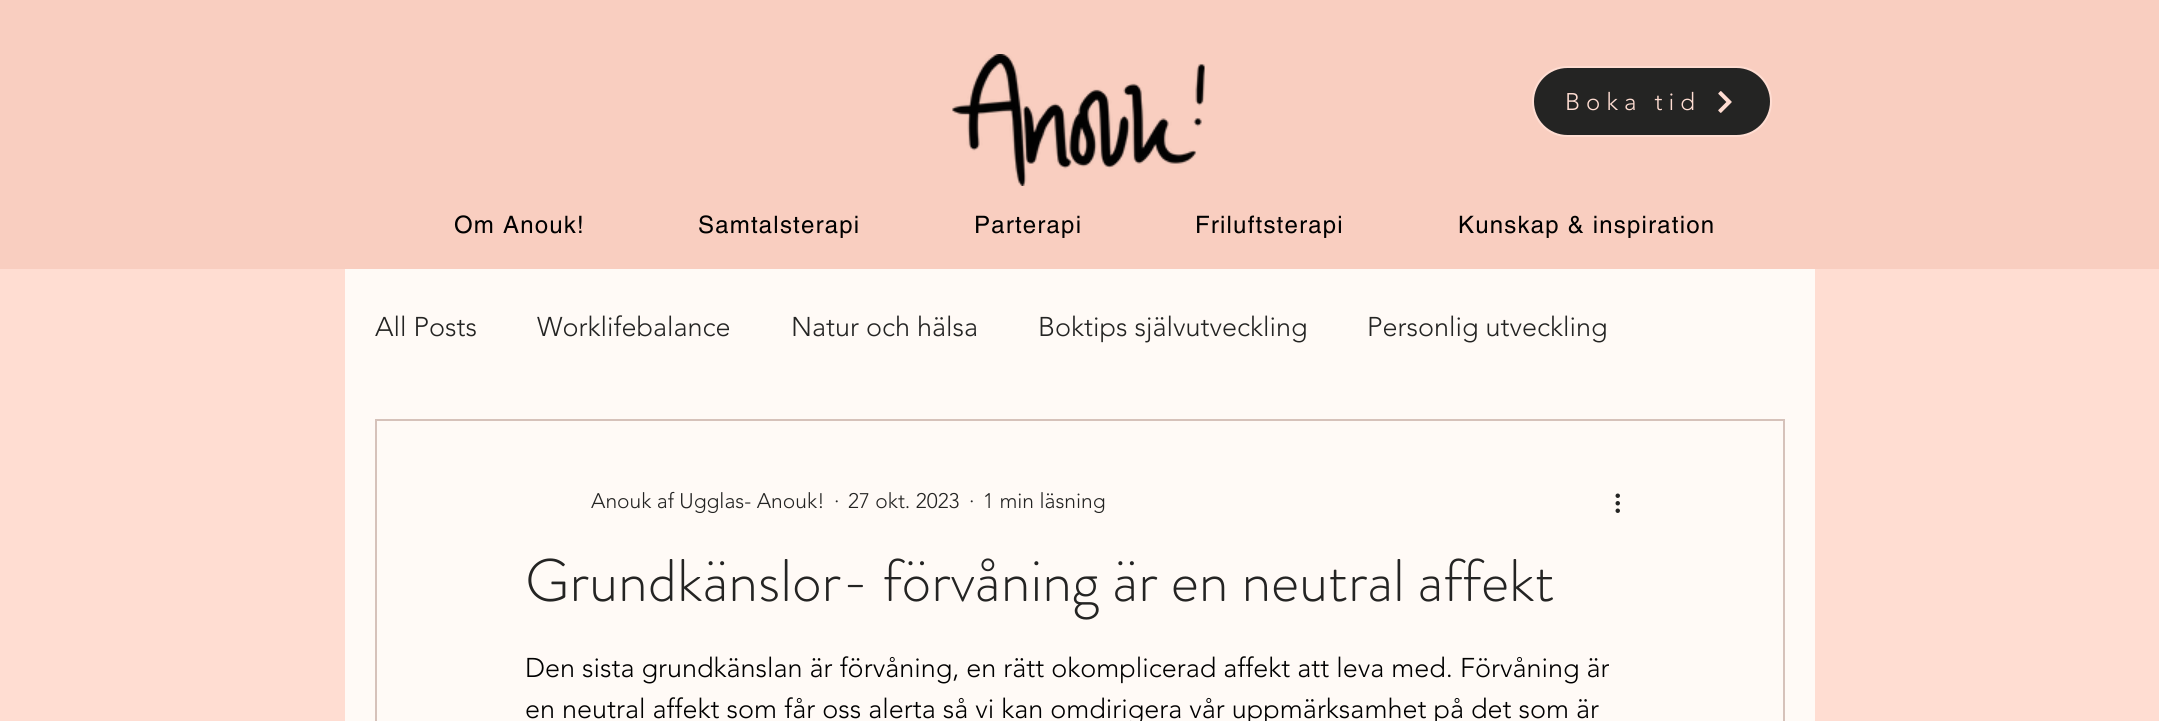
#include <cairo.h>
#include <math.h>
#include <stddef.h>


static void spaced_text(cairo_t *cr, double x, double y, const char *s, double letter, double word) {
    cairo_move_to(cr, x, y);
    while (*s) {
        char ch[5] = {0};
        int n = 0;
        do ch[n++] = *s++; while ((*s & 0xC0) == 0x80);
        cairo_show_text(cr, ch);
        cairo_rel_move_to(cr, letter + word * (*ch == ' '), 0);
    }
}

static void round_rect(cairo_t *cr, double x, double y, double w, double h, double r) {
    cairo_new_sub_path(cr);
    cairo_arc(cr, x + w - r, y + h - r, r, 0, M_PI / 2);
    cairo_arc(cr, x + r, y + h - r, r, M_PI / 2, M_PI);
    cairo_arc(cr, x + r, y + r, r, M_PI, 1.5 * M_PI);
    cairo_arc(cr, x + w - r, y + r, r, 1.5 * M_PI, 2 * M_PI);
    cairo_close_path(cr);
}

static void picture(cairo_t *cr, const char *path, double x, double y, double w, double h) {
    cairo_surface_t *image = cairo_image_surface_create_from_png(path);
    cairo_save(cr);
    cairo_set_source_surface(cr, image, x, y);
    cairo_rectangle(cr, x, y, w, h);
    cairo_fill(cr);
    cairo_restore(cr);
    cairo_surface_destroy(image);
}

int main(void) {
    cairo_surface_t *surface = cairo_image_surface_create(CAIRO_FORMAT_RGB24, 2159, 721);
    cairo_t *cr = cairo_create(surface);
    cairo_font_options_t *options = cairo_font_options_create();
    cairo_font_options_set_hint_metrics(options, CAIRO_HINT_METRICS_OFF);
    cairo_font_options_set_hint_style(options, CAIRO_HINT_STYLE_NONE);
    cairo_set_font_options(cr, options);
    cairo_set_miter_limit(cr, 4);
    cairo_set_source_rgb(cr, 1, 0.867, 0.824);
    cairo_paint(cr);
    cairo_set_source_rgb(cr, 0.976, 0.808, 0.753);
    cairo_rectangle(cr, 0, 0, 2159, 269);
    cairo_fill(cr);
    picture(cr, "img1.png", 952, 54, 253, 132);
    cairo_set_source_rgb(cr, 0.141, 0.141, 0.137);
    round_rect(cr, 1533, 67, 238, 69, 34.5);
    cairo_fill_preserve(cr);
    cairo_set_source_rgb(cr, 1, 0.867, 0.824);
    cairo_stroke(cr);
    cairo_select_font_face(cr, "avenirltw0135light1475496 Light", CAIRO_FONT_SLANT_NORMAL, CAIRO_FONT_WEIGHT_NORMAL);
    cairo_set_font_size(cr, 24);
    spaced_text(cr, 1565, 110, "Boka tid", 6, 0);
    picture(cr, "img2.png", 1718, 91, 14, 22);
    cairo_select_font_face(cr, "helvetica", CAIRO_FONT_SLANT_NORMAL, CAIRO_FONT_WEIGHT_NORMAL);
    cairo_set_source_rgb(cr, 0, 0, 0);
    spaced_text(cr, 454, 233, "Om Anouk!", 1.2, 0);
    spaced_text(cr, 698, 233, "Samtalsterapi", 1.2, 0);
    spaced_text(cr, 974, 233, "Parterapi", 1.2, 0);
    spaced_text(cr, 1195, 233, "Friluftsterapi", 1.2, 0);
    spaced_text(cr, 1458, 233, "Kunskap & inspiration", 1.2, 0);
    cairo_set_source_rgb(cr, 1, 0.98, 0.961);
    cairo_rectangle(cr, 345, 269, 1470, 452);
    cairo_fill(cr);
    cairo_select_font_face(cr, "avenirltw0135light1475496 Light", CAIRO_FONT_SLANT_NORMAL, CAIRO_FONT_WEIGHT_NORMAL);
    cairo_set_font_size(cr, 27);
    cairo_set_source_rgb(cr, 0.141, 0.141, 0.137);
    cairo_move_to(cr, 375, 336);
    cairo_show_text(cr, "All Posts");
    cairo_move_to(cr, 537, 336);
    cairo_show_text(cr, "Worklifebalance");
    cairo_move_to(cr, 791, 336);
    cairo_show_text(cr, "Natur och hälsa");
    cairo_move_to(cr, 1038, 336);
    cairo_show_text(cr, "Boktips självutveckling");
    cairo_move_to(cr, 1367, 336);
    cairo_show_text(cr, "Personlig utveckling");
    cairo_rectangle(cr, 376, 420, 1408, 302);
    cairo_set_source_rgb(cr, 0.839, 0.761, 0.729);
    cairo_stroke(cr);
    cairo_set_font_size(cr, 21);
    cairo_set_source_rgb(cr, 0.141, 0.141, 0.137);
    cairo_move_to(cr, 591, 508);
    cairo_show_text(cr, "Anouk af Ugglas- Anouk!");
    cairo_move_to(cr, 834, 508);
    cairo_show_text(cr, "·");
    cairo_move_to(cr, 848, 508);
    cairo_show_text(cr, "27 okt. 2023");
    cairo_move_to(cr, 969, 508);
    cairo_show_text(cr, "·");
    cairo_move_to(cr, 983, 508);
    cairo_show_text(cr, "1 min läsning");
    picture(cr, "img3.png", 1615, 493, 5, 20);
    cairo_select_font_face(cr, "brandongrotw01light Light", CAIRO_FONT_SLANT_NORMAL, CAIRO_FONT_WEIGHT_NORMAL);
    cairo_set_font_size(cr, 60);
    cairo_move_to(cr, 525, 601);
    cairo_show_text(cr, "Grundkänslor- förvåning är en neutral affekt");
    cairo_select_font_face(cr, "avenirltw0135light1475496 Light", CAIRO_FONT_SLANT_NORMAL, CAIRO_FONT_WEIGHT_NORMAL);
    cairo_set_font_size(cr, 27);
    cairo_set_source_rgb(cr, 0, 0, 0);
    cairo_move_to(cr, 525, 677);
    cairo_show_text(cr, "Den sista grundkänslan är förvåning, en rätt okomplicerad affekt att leva med. Förvåning är");
    cairo_move_to(cr, 525, 718);
    cairo_show_text(cr, "en neutral affekt som får oss alerta så vi kan omdirigera vår uppmärksamhet på det som är");
    cairo_surface_write_to_png(surface, "page.png");
    cairo_font_options_destroy(options);
    cairo_destroy(cr);
    cairo_surface_destroy(surface);
    return 0;
}
